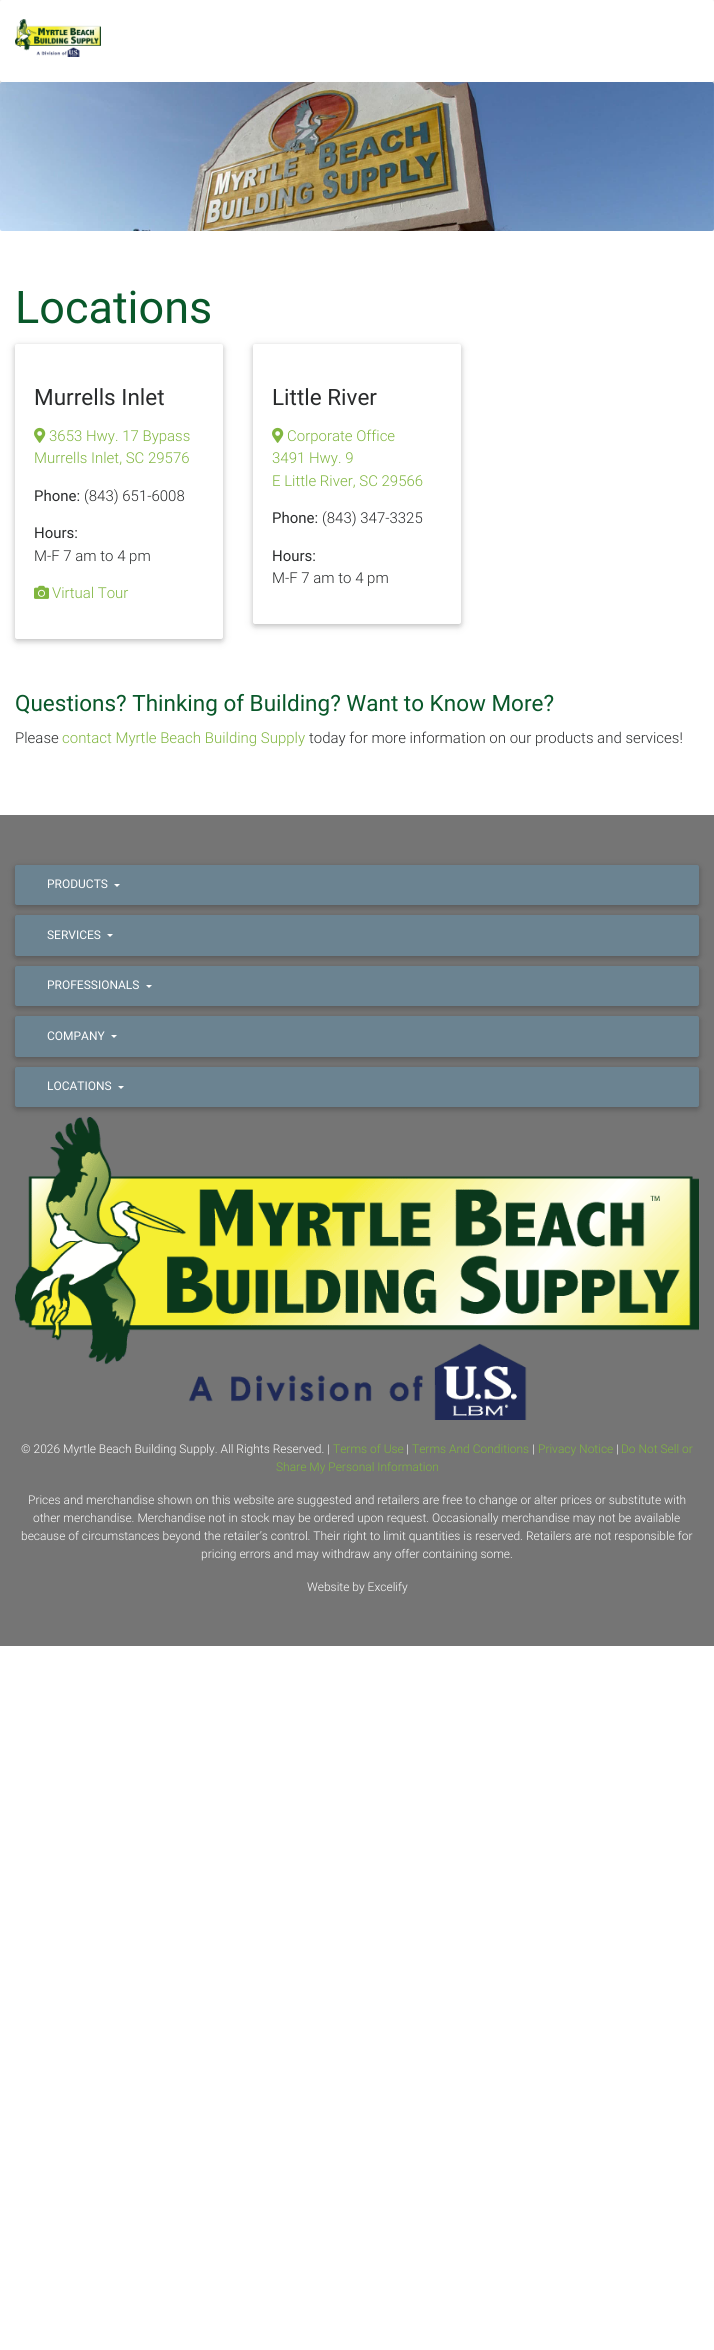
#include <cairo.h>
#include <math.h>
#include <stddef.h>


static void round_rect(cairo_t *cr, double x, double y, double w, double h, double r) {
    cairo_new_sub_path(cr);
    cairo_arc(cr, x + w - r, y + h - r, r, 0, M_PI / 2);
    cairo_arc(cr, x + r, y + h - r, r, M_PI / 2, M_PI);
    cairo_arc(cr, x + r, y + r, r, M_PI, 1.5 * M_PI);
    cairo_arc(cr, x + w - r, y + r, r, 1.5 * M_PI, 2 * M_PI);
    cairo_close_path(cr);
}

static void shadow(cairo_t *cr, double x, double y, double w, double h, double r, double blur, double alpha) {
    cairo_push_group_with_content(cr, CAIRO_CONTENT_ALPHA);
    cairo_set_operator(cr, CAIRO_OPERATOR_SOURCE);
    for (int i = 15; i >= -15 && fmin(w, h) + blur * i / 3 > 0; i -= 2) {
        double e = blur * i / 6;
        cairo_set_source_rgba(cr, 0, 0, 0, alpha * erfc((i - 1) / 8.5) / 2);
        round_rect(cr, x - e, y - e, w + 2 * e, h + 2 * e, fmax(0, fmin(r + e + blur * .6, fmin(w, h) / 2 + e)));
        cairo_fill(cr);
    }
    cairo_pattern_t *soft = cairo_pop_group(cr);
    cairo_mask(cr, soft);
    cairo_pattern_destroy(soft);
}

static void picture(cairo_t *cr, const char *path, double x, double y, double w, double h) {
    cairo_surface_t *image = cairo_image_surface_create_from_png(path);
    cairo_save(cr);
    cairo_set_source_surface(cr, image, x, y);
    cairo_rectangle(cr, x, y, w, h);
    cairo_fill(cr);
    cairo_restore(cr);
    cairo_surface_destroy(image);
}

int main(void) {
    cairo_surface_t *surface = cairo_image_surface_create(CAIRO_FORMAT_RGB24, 714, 2350);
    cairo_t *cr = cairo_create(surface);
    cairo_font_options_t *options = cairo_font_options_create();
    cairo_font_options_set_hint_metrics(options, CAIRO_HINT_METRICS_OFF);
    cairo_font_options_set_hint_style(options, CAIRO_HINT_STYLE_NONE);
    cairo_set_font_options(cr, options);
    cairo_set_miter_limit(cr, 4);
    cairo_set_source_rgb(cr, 1, 1, 1);
    cairo_paint(cr);
    cairo_set_source_rgb(cr, 0, 0, 0);
    shadow(cr, 0, 2, 714, 82, 2, 5, 0.12);
    shadow(cr, 0, 2, 714, 82, 2, 2.5, 0.16);
    cairo_set_source_rgb(cr, 1, 1, 1);
    round_rect(cr, 0, 0, 714, 82, 2);
    cairo_fill(cr);
    picture(cr, "img1.png", 15, 19, 86, 38);
    picture(cr, "img2.png", 0, 82, 714, 149);
    cairo_select_font_face(cr, "Roboto", CAIRO_FONT_SLANT_NORMAL, CAIRO_FONT_WEIGHT_NORMAL);
    cairo_set_font_size(cr, 45);
    cairo_set_source_rgb(cr, 0.039, 0.345, 0.165);
    cairo_move_to(cr, 15, 323);
    cairo_show_text(cr, "Locations");
    cairo_set_source_rgb(cr, 0, 0, 0);
    shadow(cr, 15, 346, 208, 295, 2, 5, 0.12);
    shadow(cr, 15, 346, 208, 295, 2, 2.5, 0.16);
    cairo_set_source_rgb(cr, 1, 1, 1);
    round_rect(cr, 15, 344, 208, 295, 2);
    cairo_fill(cr);
    cairo_set_font_size(cr, 22.5);
    cairo_set_source_rgb(cr, 0.161, 0.169, 0.173);
    cairo_move_to(cr, 34, 405);
    cairo_show_text(cr, "Murrells Inlet");
    picture(cr, "img3.png", 34, 427, 12, 16);
    cairo_select_font_face(cr, "Roboto Light", CAIRO_FONT_SLANT_NORMAL, CAIRO_FONT_WEIGHT_NORMAL);
    cairo_set_font_size(cr, 15);
    cairo_set_source_rgb(cr, 0.502, 0.714, 0.247);
    cairo_move_to(cr, 49, 441);
    cairo_show_text(cr, "3653 Hwy. 17 Bypass");
    cairo_move_to(cr, 34, 463);
    cairo_show_text(cr, "Murrells Inlet, SC 29576");
    cairo_select_font_face(cr, "Roboto", CAIRO_FONT_SLANT_NORMAL, CAIRO_FONT_WEIGHT_NORMAL);
    cairo_set_source_rgb(cr, 0.161, 0.169, 0.173);
    cairo_move_to(cr, 34, 501);
    cairo_show_text(cr, "Phone:");
    cairo_select_font_face(cr, "Roboto Light", CAIRO_FONT_SLANT_NORMAL, CAIRO_FONT_WEIGHT_NORMAL);
    cairo_move_to(cr, 84, 501);
    cairo_show_text(cr, "(843) 651-6008");
    cairo_select_font_face(cr, "Roboto", CAIRO_FONT_SLANT_NORMAL, CAIRO_FONT_WEIGHT_NORMAL);
    cairo_move_to(cr, 34, 538);
    cairo_show_text(cr, "Hours:");
    cairo_select_font_face(cr, "Roboto Light", CAIRO_FONT_SLANT_NORMAL, CAIRO_FONT_WEIGHT_NORMAL);
    cairo_move_to(cr, 34, 561);
    cairo_show_text(cr, "M-F 7 am to 4 pm");
    picture(cr, "img4.png", 34, 585, 15, 14);
    cairo_set_source_rgb(cr, 0.502, 0.714, 0.247);
    cairo_move_to(cr, 52, 598);
    cairo_show_text(cr, "Virtual Tour");
    cairo_set_source_rgb(cr, 0, 0, 0);
    shadow(cr, 253, 346, 208, 280, 2, 5, 0.12);
    shadow(cr, 253, 346, 208, 280, 2, 2.5, 0.16);
    cairo_set_source_rgb(cr, 1, 1, 1);
    round_rect(cr, 253, 344, 208, 280, 2);
    cairo_fill(cr);
    cairo_select_font_face(cr, "Roboto", CAIRO_FONT_SLANT_NORMAL, CAIRO_FONT_WEIGHT_NORMAL);
    cairo_set_font_size(cr, 22.5);
    cairo_set_source_rgb(cr, 0.161, 0.169, 0.173);
    cairo_move_to(cr, 272, 405);
    cairo_show_text(cr, "Little River");
    picture(cr, "img3.png", 272, 427, 12, 16);
    cairo_select_font_face(cr, "Roboto Light", CAIRO_FONT_SLANT_NORMAL, CAIRO_FONT_WEIGHT_NORMAL);
    cairo_set_font_size(cr, 15);
    cairo_set_source_rgb(cr, 0.502, 0.714, 0.247);
    cairo_move_to(cr, 287, 441);
    cairo_show_text(cr, "Corporate Office");
    cairo_move_to(cr, 272, 463);
    cairo_show_text(cr, "3491 Hwy. 9");
    cairo_move_to(cr, 272, 486);
    cairo_show_text(cr, "E Little River, SC 29566");
    cairo_select_font_face(cr, "Roboto", CAIRO_FONT_SLANT_NORMAL, CAIRO_FONT_WEIGHT_NORMAL);
    cairo_set_source_rgb(cr, 0.161, 0.169, 0.173);
    cairo_move_to(cr, 272, 523);
    cairo_show_text(cr, "Phone:");
    cairo_select_font_face(cr, "Roboto Light", CAIRO_FONT_SLANT_NORMAL, CAIRO_FONT_WEIGHT_NORMAL);
    cairo_move_to(cr, 322, 523);
    cairo_show_text(cr, "(843) 347-3325");
    cairo_select_font_face(cr, "Roboto", CAIRO_FONT_SLANT_NORMAL, CAIRO_FONT_WEIGHT_NORMAL);
    cairo_move_to(cr, 272, 561);
    cairo_show_text(cr, "Hours:");
    cairo_select_font_face(cr, "Roboto Light", CAIRO_FONT_SLANT_NORMAL, CAIRO_FONT_WEIGHT_NORMAL);
    cairo_move_to(cr, 272, 583);
    cairo_show_text(cr, "M-F 7 am to 4 pm");
    cairo_select_font_face(cr, "Roboto", CAIRO_FONT_SLANT_NORMAL, CAIRO_FONT_WEIGHT_NORMAL);
    cairo_set_font_size(cr, 22.5);
    cairo_set_source_rgb(cr, 0.039, 0.345, 0.165);
    cairo_move_to(cr, 15, 711);
    cairo_show_text(cr, "Questions? Thinking of Building? Want to Know More?");
    cairo_select_font_face(cr, "Roboto Light", CAIRO_FONT_SLANT_NORMAL, CAIRO_FONT_WEIGHT_NORMAL);
    cairo_set_font_size(cr, 15);
    cairo_set_source_rgb(cr, 0.161, 0.169, 0.173);
    cairo_move_to(cr, 15, 743);
    cairo_show_text(cr, "Please");
    cairo_set_source_rgb(cr, 0.502, 0.714, 0.247);
    cairo_move_to(cr, 62, 743);
    cairo_show_text(cr, "contact Myrtle Beach Building Supply");
    cairo_set_source_rgb(cr, 0.161, 0.169, 0.173);
    cairo_move_to(cr, 309, 743);
    cairo_show_text(cr, "today for more information on our products and services!");
    cairo_set_source_rgb(cr, 0.459, 0.459, 0.459);
    cairo_rectangle(cr, 0, 815, 714, 831);
    cairo_fill(cr);
    cairo_set_source_rgb(cr, 0, 0, 0);
    shadow(cr, 15, 867, 684, 40, 2, 5, 0.12);
    shadow(cr, 15, 867, 684, 40, 2, 2.5, 0.16);
    cairo_set_source_rgb(cr, 0.42, 0.514, 0.569);
    round_rect(cr, 15, 865, 684, 40, 2);
    cairo_fill(cr);
    cairo_select_font_face(cr, "Roboto", CAIRO_FONT_SLANT_NORMAL, CAIRO_FONT_WEIGHT_NORMAL);
    cairo_set_font_size(cr, 12);
    cairo_set_source_rgb(cr, 1, 1, 1);
    cairo_move_to(cr, 47, 888);
    cairo_show_text(cr, "PRODUCTS");
    cairo_new_path(cr);
    cairo_move_to(cr, 114, 884);
    cairo_line_to(cr, 120, 884);
    cairo_line_to(cr, 117, 887);
    cairo_close_path(cr);
    cairo_fill(cr);
    cairo_set_source_rgb(cr, 0, 0, 0);
    shadow(cr, 15, 917, 684, 41, 2, 5, 0.12);
    shadow(cr, 15, 917, 684, 41, 2, 2.5, 0.16);
    cairo_set_source_rgb(cr, 0.42, 0.514, 0.569);
    round_rect(cr, 15, 915, 684, 41, 2);
    cairo_fill(cr);
    cairo_set_source_rgb(cr, 1, 1, 1);
    cairo_move_to(cr, 47, 939);
    cairo_show_text(cr, "SERVICES");
    cairo_new_path(cr);
    cairo_move_to(cr, 107, 934);
    cairo_line_to(cr, 113, 934);
    cairo_line_to(cr, 110, 937);
    cairo_close_path(cr);
    cairo_fill(cr);
    cairo_set_source_rgb(cr, 0, 0, 0);
    shadow(cr, 15, 968, 684, 40, 2, 5, 0.12);
    shadow(cr, 15, 968, 684, 40, 2, 2.5, 0.16);
    cairo_set_source_rgb(cr, 0.42, 0.514, 0.569);
    round_rect(cr, 15, 966, 684, 40, 2);
    cairo_fill(cr);
    cairo_set_source_rgb(cr, 1, 1, 1);
    cairo_move_to(cr, 47, 989);
    cairo_show_text(cr, "PROFESSIONALS");
    cairo_new_path(cr);
    cairo_move_to(cr, 146, 985);
    cairo_line_to(cr, 152, 985);
    cairo_line_to(cr, 149, 988);
    cairo_close_path(cr);
    cairo_fill(cr);
    cairo_set_source_rgb(cr, 0, 0, 0);
    shadow(cr, 15, 1018, 684, 41, 2, 5, 0.12);
    shadow(cr, 15, 1018, 684, 41, 2, 2.5, 0.16);
    cairo_set_source_rgb(cr, 0.42, 0.514, 0.569);
    round_rect(cr, 15, 1016, 684, 41, 2);
    cairo_fill(cr);
    cairo_set_source_rgb(cr, 1, 1, 1);
    cairo_move_to(cr, 47, 1040);
    cairo_show_text(cr, "COMPANY");
    cairo_new_path(cr);
    cairo_move_to(cr, 111, 1035);
    cairo_line_to(cr, 117, 1035);
    cairo_line_to(cr, 114, 1038);
    cairo_close_path(cr);
    cairo_fill(cr);
    cairo_set_source_rgb(cr, 0, 0, 0);
    shadow(cr, 15, 1069, 684, 40, 2, 5, 0.12);
    shadow(cr, 15, 1069, 684, 40, 2, 2.5, 0.16);
    cairo_set_source_rgb(cr, 0.42, 0.514, 0.569);
    round_rect(cr, 15, 1067, 684, 40, 2);
    cairo_fill(cr);
    cairo_set_source_rgb(cr, 1, 1, 1);
    cairo_move_to(cr, 47, 1090);
    cairo_show_text(cr, "LOCATIONS");
    cairo_new_path(cr);
    cairo_move_to(cr, 118, 1086);
    cairo_line_to(cr, 124, 1086);
    cairo_line_to(cr, 121, 1089);
    cairo_close_path(cr);
    cairo_fill(cr);
    picture(cr, "img5.png", 15, 1117, 684, 303);
    cairo_select_font_face(cr, "Roboto Light", CAIRO_FONT_SLANT_NORMAL, CAIRO_FONT_WEIGHT_NORMAL);
    cairo_move_to(cr, 21, 1453);
    cairo_show_text(cr, "© 2026 Myrtle Beach Building Supply. All Rights Reserved. |");
    cairo_set_source_rgb(cr, 0.502, 0.714, 0.247);
    cairo_move_to(cr, 333, 1453);
    cairo_show_text(cr, "Terms of Use");
    cairo_set_source_rgb(cr, 1, 1, 1);
    cairo_move_to(cr, 406, 1453);
    cairo_show_text(cr, "|");
    cairo_set_source_rgb(cr, 0.502, 0.714, 0.247);
    cairo_move_to(cr, 412, 1453);
    cairo_show_text(cr, "Terms And Conditions");
    cairo_set_source_rgb(cr, 1, 1, 1);
    cairo_move_to(cr, 532, 1453);
    cairo_show_text(cr, "|");
    cairo_set_source_rgb(cr, 0.502, 0.714, 0.247);
    cairo_move_to(cr, 538, 1453);
    cairo_show_text(cr, "Privacy Notice");
    cairo_set_source_rgb(cr, 1, 1, 1);
    cairo_move_to(cr, 616, 1453);
    cairo_show_text(cr, "|");
    cairo_set_source_rgb(cr, 0.502, 0.714, 0.247);
    cairo_move_to(cr, 621, 1453);
    cairo_show_text(cr, "Do Not Sell or");
    cairo_move_to(cr, 276, 1471);
    cairo_show_text(cr, "Share My Personal Information");
    cairo_set_source_rgb(cr, 1, 1, 1);
    cairo_move_to(cr, 28, 1504);
    cairo_show_text(cr, "Prices and merchandise shown on this website are suggested and retailers are free to change or alter prices or substitute with");
    cairo_move_to(cr, 33, 1522);
    cairo_show_text(cr, "other merchandise. Merchandise not in stock may be ordered upon request. Occasionally merchandise may not be available");
    cairo_move_to(cr, 21, 1540);
    cairo_show_text(cr, "because of circumstances beyond the retailer’s control. Their right to limit quantities is reserved. Retailers are not responsible for");
    cairo_move_to(cr, 201, 1558);
    cairo_show_text(cr, "pricing errors and may withdraw any offer containing some.");
    cairo_move_to(cr, 307, 1591);
    cairo_show_text(cr, "Website by Excelify");
    cairo_surface_write_to_png(surface, "page.png");
    cairo_font_options_destroy(options);
    cairo_destroy(cr);
    cairo_surface_destroy(surface);
    return 0;
}
